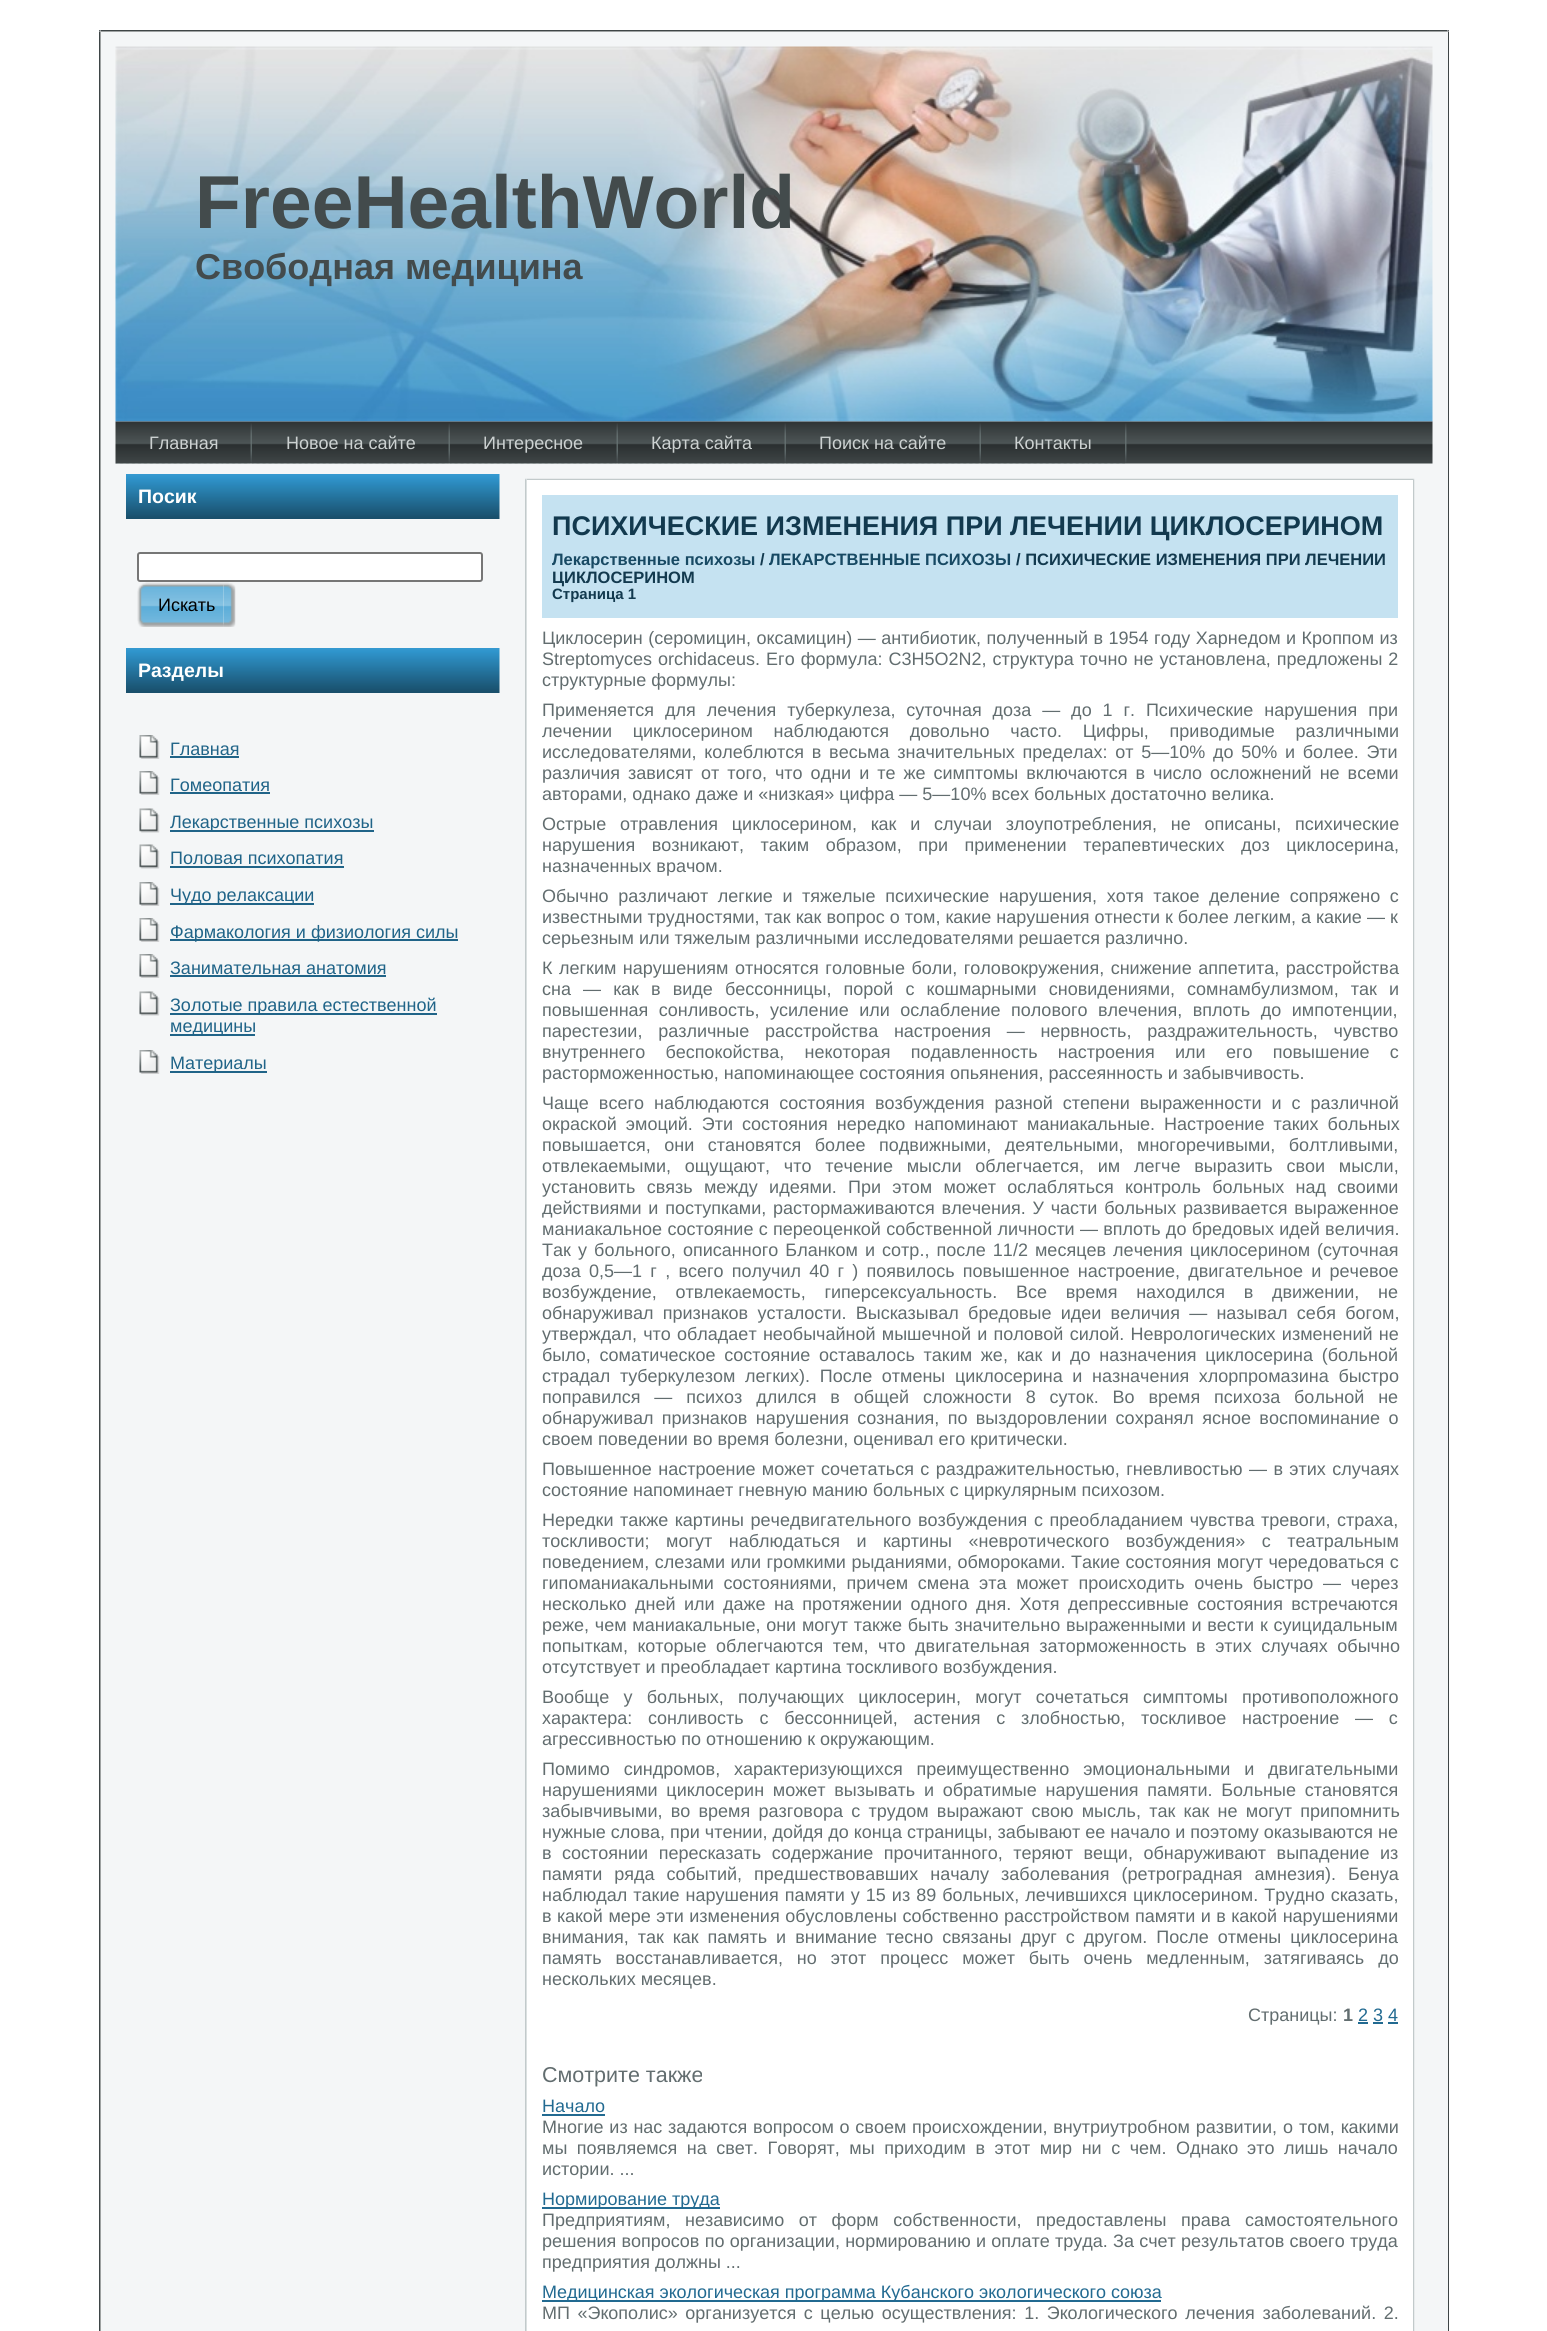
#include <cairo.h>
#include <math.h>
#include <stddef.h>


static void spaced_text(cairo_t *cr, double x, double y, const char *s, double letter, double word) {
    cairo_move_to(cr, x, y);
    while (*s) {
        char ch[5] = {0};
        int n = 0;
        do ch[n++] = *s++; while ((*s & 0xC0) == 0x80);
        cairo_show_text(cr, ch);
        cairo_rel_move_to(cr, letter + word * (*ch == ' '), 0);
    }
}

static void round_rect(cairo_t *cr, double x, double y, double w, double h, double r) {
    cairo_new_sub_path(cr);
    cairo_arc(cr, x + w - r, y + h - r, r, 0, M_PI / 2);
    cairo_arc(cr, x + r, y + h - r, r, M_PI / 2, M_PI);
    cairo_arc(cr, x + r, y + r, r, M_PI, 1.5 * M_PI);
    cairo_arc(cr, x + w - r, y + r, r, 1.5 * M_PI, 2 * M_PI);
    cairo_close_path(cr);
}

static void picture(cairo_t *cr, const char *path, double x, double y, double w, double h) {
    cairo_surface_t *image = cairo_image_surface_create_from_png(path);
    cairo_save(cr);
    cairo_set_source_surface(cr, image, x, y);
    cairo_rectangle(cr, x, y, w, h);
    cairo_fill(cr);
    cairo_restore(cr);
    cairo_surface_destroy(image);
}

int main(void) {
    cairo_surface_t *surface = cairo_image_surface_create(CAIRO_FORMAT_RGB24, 1547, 2331);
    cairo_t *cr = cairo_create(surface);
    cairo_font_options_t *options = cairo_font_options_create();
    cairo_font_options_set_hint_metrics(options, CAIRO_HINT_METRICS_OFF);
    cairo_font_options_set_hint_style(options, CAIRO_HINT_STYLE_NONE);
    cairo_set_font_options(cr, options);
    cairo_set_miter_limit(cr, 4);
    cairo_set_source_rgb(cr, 1, 1, 1);
    cairo_paint(cr);
    picture(cr, "img1.png", 99, 30, 2, 2);
    picture(cr, "img4.png", 1447, 30, 2, 2);
    picture(cr, "img2.png", 100, 30, 1348, 2);
    picture(cr, "img3.png", 99, 31, 2, 2300);
    picture(cr, "img5.png", 1447, 31, 2, 2300);
    cairo_set_source_rgb(cr, 0.957, 0.961, 0.965);
    cairo_rectangle(cr, 101, 32, 1347, 2299);
    cairo_fill(cr);
    picture(cr, "img6.png", 115, 46, 1318, 376);
    cairo_select_font_face(cr, "Liberation Sans", CAIRO_FONT_SLANT_NORMAL, CAIRO_FONT_WEIGHT_BOLD);
    cairo_set_font_size(cr, 75);
    cairo_set_source_rgb(cr, 0.263, 0.294, 0.298);
    cairo_move_to(cr, 195, 228);
    cairo_show_text(cr, "FreeHealthWorld");
    cairo_set_font_size(cr, 36);
    cairo_move_to(cr, 195, 279);
    cairo_show_text(cr, "Свободная медицина");
    picture(cr, "img7.png", 115, 421, 1318, 43);
    cairo_select_font_face(cr, "Liberation Sans", CAIRO_FONT_SLANT_NORMAL, CAIRO_FONT_WEIGHT_NORMAL);
    cairo_set_font_size(cr, 18);
    cairo_set_source_rgb(cr, 0.8, 0.82, 0.82);
    cairo_move_to(cr, 149, 449);
    cairo_show_text(cr, "Главная");
    picture(cr, "img8.png", 115, 463, 135, 1);
    picture(cr, "img9.png", 250, 423, 2, 40);
    cairo_move_to(cr, 286, 449);
    cairo_show_text(cr, "Новое на сайте");
    picture(cr, "img10.png", 252, 463, 197, 1);
    picture(cr, "img9.png", 448, 423, 2, 40);
    cairo_move_to(cr, 483, 449);
    cairo_show_text(cr, "Интересное");
    picture(cr, "img11.png", 450, 463, 167, 1);
    picture(cr, "img9.png", 616, 423, 2, 40);
    cairo_move_to(cr, 651, 449);
    cairo_show_text(cr, "Карта сайта");
    picture(cr, "img12.png", 618, 463, 167, 1);
    picture(cr, "img9.png", 784, 423, 2, 40);
    cairo_move_to(cr, 819, 449);
    cairo_show_text(cr, "Поиск на сайте");
    picture(cr, "img13.png", 786, 463, 193, 1);
    picture(cr, "img9.png", 979, 423, 2, 40);
    cairo_move_to(cr, 1014, 449);
    cairo_show_text(cr, "Контакты");
    picture(cr, "img14.png", 981, 463, 144, 1);
    picture(cr, "img15.png", 1125, 423, 2, 40);
    picture(cr, "img16.png", 126, 474, 374, 45);
    cairo_select_font_face(cr, "Liberation Sans", CAIRO_FONT_SLANT_NORMAL, CAIRO_FONT_WEIGHT_BOLD);
    cairo_set_font_size(cr, 19.5);
    cairo_set_source_rgb(cr, 1, 1, 1);
    cairo_move_to(cr, 138, 503);
    cairo_show_text(cr, "Посик");
    round_rect(cr, 138, 553, 344, 28, 2);
    cairo_fill_preserve(cr);
    cairo_set_source_rgb(cr, 0.463, 0.463, 0.463);
    cairo_stroke(cr);
    picture(cr, "img17.png", 137, 582, 87, 45);
    picture(cr, "img18.png", 223, 582, 13, 45);
    cairo_select_font_face(cr, "Liberation Sans", CAIRO_FONT_SLANT_NORMAL, CAIRO_FONT_WEIGHT_NORMAL);
    cairo_set_font_size(cr, 18);
    cairo_set_source_rgb(cr, 0, 0, 0);
    cairo_move_to(cr, 158, 611);
    cairo_show_text(cr, "Искать");
    picture(cr, "img16.png", 126, 648, 374, 45);
    cairo_select_font_face(cr, "Liberation Sans", CAIRO_FONT_SLANT_NORMAL, CAIRO_FONT_WEIGHT_BOLD);
    cairo_set_font_size(cr, 19.5);
    cairo_set_source_rgb(cr, 1, 1, 1);
    cairo_move_to(cr, 138, 677);
    cairo_show_text(cr, "Разделы");
    picture(cr, "img19.png", 139, 735, 21, 24);
    cairo_select_font_face(cr, "Liberation Sans", CAIRO_FONT_SLANT_NORMAL, CAIRO_FONT_WEIGHT_NORMAL);
    cairo_set_font_size(cr, 18);
    cairo_set_source_rgb(cr, 0.125, 0.392, 0.533);
    cairo_move_to(cr, 170, 755);
    cairo_show_text(cr, "Главная");
    cairo_rectangle(cr, 170, 756, 69, 2);
    cairo_fill(cr);
    picture(cr, "img19.png", 139, 771, 21, 24);
    cairo_move_to(cr, 170, 791);
    cairo_show_text(cr, "Гомеопатия");
    cairo_rectangle(cr, 170, 792, 100, 2);
    cairo_fill(cr);
    picture(cr, "img20.png", 139, 808, 21, 25);
    cairo_rectangle(cr, 170, 830, 204, 2);
    cairo_fill(cr);
    cairo_move_to(cr, 170, 828);
    cairo_show_text(cr, "Лекарственные психозы");
    picture(cr, "img20.png", 139, 844, 21, 25);
    cairo_move_to(cr, 170, 864);
    cairo_show_text(cr, "Половая психопатия");
    cairo_rectangle(cr, 170, 866, 174, 2);
    cairo_fill(cr);
    picture(cr, "img19.png", 139, 882, 21, 24);
    cairo_rectangle(cr, 170, 903, 144, 2);
    cairo_fill(cr);
    cairo_move_to(cr, 170, 901);
    cairo_show_text(cr, "Чудо релаксации");
    picture(cr, "img19.png", 139, 918, 21, 24);
    cairo_rectangle(cr, 170, 939, 288, 2);
    cairo_fill(cr);
    cairo_move_to(cr, 170, 938);
    cairo_show_text(cr, "Фармакология и физиология силы");
    picture(cr, "img19.png", 139, 954, 21, 24);
    cairo_move_to(cr, 170, 974);
    cairo_show_text(cr, "Занимательная анатомия");
    cairo_rectangle(cr, 170, 975, 216, 2);
    cairo_fill(cr);
    picture(cr, "img20.png", 139, 991, 21, 25);
    cairo_rectangle(cr, 170, 1013, 267, 2);
    cairo_fill(cr);
    cairo_move_to(cr, 170, 1011);
    cairo_show_text(cr, "Золотые правила естественной");
    cairo_rectangle(cr, 170, 1034, 85, 2);
    cairo_fill(cr);
    cairo_move_to(cr, 170, 1032);
    cairo_show_text(cr, "медицины");
    picture(cr, "img19.png", 139, 1050, 21, 24);
    cairo_rectangle(cr, 170, 1071, 97, 2);
    cairo_fill(cr);
    cairo_move_to(cr, 170, 1069);
    cairo_show_text(cr, "Материалы");
    picture(cr, "img21.png", 525, 478, 2, 2);
    picture(cr, "img22.png", 526, 478, 887, 2);
    picture(cr, "img23.png", 1413, 478, 2, 2);
    picture(cr, "img24.png", 525, 480, 2, 1851);
    cairo_set_source_rgb(cr, 1, 1, 1);
    cairo_rectangle(cr, 527, 480, 886, 1851);
    cairo_fill(cr);
    picture(cr, "img25.png", 1413, 480, 2, 1851);
    cairo_set_source_rgb(cr, 0.773, 0.886, 0.945);
    cairo_rectangle(cr, 542, 495, 856, 123);
    cairo_fill(cr);
    cairo_select_font_face(cr, "Liberation Sans", CAIRO_FONT_SLANT_NORMAL, CAIRO_FONT_WEIGHT_BOLD);
    cairo_set_font_size(cr, 27);
    cairo_set_source_rgb(cr, 0.071, 0.224, 0.306);
    cairo_move_to(cr, 552, 535);
    cairo_show_text(cr, "ПСИХИЧЕСКИЕ ИЗМЕНЕНИЯ ПРИ ЛЕЧЕНИИ ЦИКЛОСЕРИНОМ");
    cairo_set_font_size(cr, 16.5);
    cairo_set_source_rgb(cr, 0.09, 0.286, 0.388);
    cairo_move_to(cr, 552, 565);
    cairo_show_text(cr, "Лекарственные психозы");
    cairo_set_source_rgb(cr, 0.071, 0.224, 0.306);
    cairo_move_to(cr, 760, 565);
    cairo_show_text(cr, "/");
    cairo_set_source_rgb(cr, 0.09, 0.286, 0.388);
    cairo_move_to(cr, 769, 565);
    cairo_show_text(cr, "ЛЕКАРСТВЕННЫЕ ПСИХОЗЫ");
    cairo_set_source_rgb(cr, 0.071, 0.224, 0.306);
    cairo_move_to(cr, 1016, 565);
    cairo_show_text(cr, "/ ПСИХИЧЕСКИЕ ИЗМЕНЕНИЯ ПРИ ЛЕЧЕНИИ");
    cairo_move_to(cr, 552, 583);
    cairo_show_text(cr, "ЦИКЛОСЕРИНОМ");
    cairo_set_font_size(cr, 15);
    cairo_move_to(cr, 552, 599);
    cairo_show_text(cr, "Страница 1");
    cairo_select_font_face(cr, "Liberation Sans", CAIRO_FONT_SLANT_NORMAL, CAIRO_FONT_WEIGHT_NORMAL);
    cairo_set_font_size(cr, 18);
    cairo_set_source_rgb(cr, 0.384, 0.427, 0.435);
    spaced_text(cr, 542, 644, "Циклосерин (серомицин, оксамицин) — антибиотик, полученный в 1954 году Харнедом и Кроппом из", 0, 0.5);
    spaced_text(cr, 542, 665, "Streptomyces orchidaceus. Его формула: C3H5O2N2, структура точно не установлена, предложены 2", 0, 1);
    cairo_move_to(cr, 542, 686);
    cairo_show_text(cr, "структурные формулы:");
    spaced_text(cr, 542, 716, "Применяется для лечения туберкулеза, суточная доза — до 1 г. Психические нарушения при", 0, 5.9);
    spaced_text(cr, 542, 737, "лечении циклосерином наблюдаются довольно часто. Цифры, приводимые различными", 0, 15.75);
    spaced_text(cr, 542, 758, "исследователями, колеблются в весьма значительных пределах: от 5—10% до 50% и более. Эти", 0, 2.75);
    spaced_text(cr, 542, 779, "различия зависят от того, что одни и те же симптомы включаются в число осложнений не всеми", 0, 3);
    cairo_move_to(cr, 542, 800);
    cairo_show_text(cr, "авторами, однако даже и «низкая» цифра — 5—10% всех больных достаточно велика.");
    spaced_text(cr, 542, 830, "Острые отравления циклосерином, как и случаи злоупотребления, не описаны, психические", 0, 8.75);
    spaced_text(cr, 542, 851, "нарушения возникают, таким образом, при применении терапевтических доз циклосерина,", 0, 11.5);
    cairo_move_to(cr, 542, 872);
    cairo_show_text(cr, "назначенных врачом.");
    spaced_text(cr, 542, 902, "Обычно различают легкие и тяжелые психические нарушения, хотя такое деление сопряжено с", 0, 4.6);
    cairo_move_to(cr, 542, 923);
    cairo_show_text(cr, "известными трудностями, так как вопрос о том, какие нарушения отнести к более легким, а какие — к");
    cairo_move_to(cr, 542, 944);
    cairo_show_text(cr, "серьезным или тяжелым различными исследователями решается различно.");
    spaced_text(cr, 542, 974, "К легким нарушениям относятся головные боли, головокружения, снижение аппетита, расстройства", 0, 1.5);
    spaced_text(cr, 542, 995, "сна — как в виде бессонницы, порой с кошмарными сновидениями, сомнамбулизмом, так и", 0, 7.1);
    spaced_text(cr, 542, 1016, "повышенная сонливость, усиление или ослабление полового влечения, вплоть до импотенции,", 0, 5.5);
    spaced_text(cr, 542, 1037, "парестезии, различные расстройства настроения — нервность, раздражительность, чувство", 0, 10.75);
    spaced_text(cr, 542, 1058, "внутреннего беспокойства, некоторая подавленность настроения или его повышение с", 0, 15.25);
    cairo_move_to(cr, 542, 1079);
    cairo_show_text(cr, "расторможенностью, напоминающее состояния опьянения, рассеянность и забывчивость.");
    spaced_text(cr, 542, 1109, "Чаще всего наблюдаются состояния возбуждения разной степени выраженности и с различной", 0, 5);
    spaced_text(cr, 542, 1130, "окраской эмоций. Эти состояния нередко напоминают маниакальные. Настроение таких больных", 0, 4);
    spaced_text(cr, 542, 1151, "повышается, они становятся более подвижными, деятельными, многоречивыми, болтливыми,", 0, 8.5);
    spaced_text(cr, 542, 1172, "отвлекаемыми, ощущают, что течение мысли облегчается, им легче выразить свои мысли,", 0, 8.75);
    spaced_text(cr, 542, 1193, "установить связь между идеями. При этом может ослабляться контроль больных над своими", 0, 6.25);
    spaced_text(cr, 542, 1214, "действиями и поступками, растормаживаются влечения. У части больных развивается выраженное", 0, 1.75);
    spaced_text(cr, 542, 1235, "маниакальное состояние с переоценкой собственной личности — вплоть до бредовых идей величия.", 0, 0.25);
    spaced_text(cr, 542, 1256, "Так у больного, описанного Бланком и сотр., после 11/2 месяцев лечения циклосерином (суточная", 0, 2.1);
    spaced_text(cr, 542, 1277, "доза 0,5—1 г , всего получил 40 г ) появилось повышенное настроение, двигательное и речевое", 0, 3.25);
    spaced_text(cr, 542, 1298, "возбуждение, отвлекаемость, гиперсексуальность. Все время находился в движении, не", 0, 13.75);
    spaced_text(cr, 542, 1319, "обнаруживал признаков усталости. Высказывал бредовые идеи величия — называл себя богом,", 0, 4.25);
    spaced_text(cr, 542, 1340, "утверждал, что обладает необычайной мышечной и половой силой. Неврологических изменений не", 0, 1.25);
    spaced_text(cr, 542, 1361, "было, соматическое состояние оставалось таким же, как и до назначения циклосерина (больной", 0, 3.75);
    spaced_text(cr, 542, 1382, "страдал туберкулезом легких). После отмены циклосерина и назначения хлорпромазина быстро", 0, 4.6);
    spaced_text(cr, 542, 1403, "поправился — психоз длился в общей сложности 8 суток. Во время психоза больной не", 0, 8.9);
    spaced_text(cr, 542, 1424, "обнаруживал признаков нарушения сознания, по выздоровлении сохранял ясное воспоминание о", 0, 3.4);
    cairo_move_to(cr, 542, 1445);
    cairo_show_text(cr, "своем поведении во время болезни, оценивал его критически.");
    spaced_text(cr, 542, 1475, "Повышенное настроение может сочетаться с раздражительностью, гневливостью — в этих случаях", 0, 1.4);
    cairo_move_to(cr, 542, 1496);
    cairo_show_text(cr, "состояние напоминает гневную манию больных с циркулярным психозом.");
    spaced_text(cr, 542, 1526, "Нередки также картины речедвигательного возбуждения с преобладанием чувства тревоги, страха,", 0, 1.6);
    spaced_text(cr, 542, 1547, "тоскливости; могут наблюдаться и картины «невротического возбуждения» с театральным", 0, 11.5);
    spaced_text(cr, 542, 1568, "поведением, слезами или громкими рыданиями, обмороками. Такие состояния могут чередоваться с", 0, 0.5);
    spaced_text(cr, 542, 1589, "гипоманиакальными состояниями, причем смена эта может происходить очень быстро — через", 0, 4.75);
    spaced_text(cr, 542, 1610, "несколько дней или даже на протяжении одного дня. Хотя депрессивные состояния встречаются", 0, 3.4);
    spaced_text(cr, 542, 1631, "реже, чем маниакальные, они могут также быть значительно выраженными и вести к суицидальным", 0, 0.75);
    spaced_text(cr, 542, 1652, "попыткам, которые облегчаются тем, что двигательная заторможенность в этих случаях обычно", 0, 4.5);
    cairo_move_to(cr, 542, 1673);
    cairo_show_text(cr, "отсутствует и преобладает картина тоскливого возбуждения.");
    spaced_text(cr, 542, 1703, "Вообще у больных, получающих циклосерин, могут сочетаться симптомы противоположного", 0, 9.25);
    spaced_text(cr, 542, 1724, "характера: сонливость с бессонницей, астения с злобностью, тоскливое настроение — с", 0, 10.75);
    cairo_move_to(cr, 542, 1745);
    cairo_show_text(cr, "агрессивностью по отношению к окружающим.");
    spaced_text(cr, 542, 1775, "Помимо синдромов, характеризующихся преимущественно эмоциональными и двигательными", 0, 8.9);
    spaced_text(cr, 542, 1796, "нарушениями циклосерин может вызывать и обратимые нарушения памяти. Больные становятся", 0, 3.75);
    spaced_text(cr, 542, 1817, "забывчивыми, во время разговора с трудом выражают свою мысль, так как не могут припомнить", 0, 3.25);
    cairo_move_to(cr, 542, 1838);
    cairo_show_text(cr, "нужные слова, при чтении, дойдя до конца страницы, забывают ее начало и поэтому оказываются не");
    spaced_text(cr, 542, 1859, "в состоянии пересказать содержание прочитанного, теряют вещи, обнаруживают выпадение из", 0, 5.5);
    spaced_text(cr, 542, 1880, "памяти ряда событий, предшествовавших началу заболевания (ретроградная амнезия). Бенуа", 0, 7);
    spaced_text(cr, 542, 1901, "наблюдал такие нарушения памяти у 15 из 89 больных, лечившихся циклосерином. Трудно сказать,", 0, 1);
    spaced_text(cr, 542, 1922, "в какой мере эти изменения обусловлены собственно расстройством памяти и в какой нарушениями", 0, 0.5);
    spaced_text(cr, 542, 1943, "внимания, так как память и внимание тесно связаны друг с другом. После отмены циклосерина", 0, 4);
    spaced_text(cr, 542, 1964, "память восстанавливается, но этот процесс может быть очень медленным, затягиваясь до", 0, 8.9);
    cairo_move_to(cr, 542, 1985);
    cairo_show_text(cr, "нескольких месяцев.");
    cairo_move_to(cr, 1248, 2021);
    cairo_show_text(cr, "Страницы:");
    cairo_select_font_face(cr, "Liberation Sans", CAIRO_FONT_SLANT_NORMAL, CAIRO_FONT_WEIGHT_BOLD);
    cairo_move_to(cr, 1343, 2021);
    cairo_show_text(cr, "1");
    cairo_select_font_face(cr, "Liberation Sans", CAIRO_FONT_SLANT_NORMAL, CAIRO_FONT_WEIGHT_NORMAL);
    cairo_set_source_rgb(cr, 0.133, 0.416, 0.569);
    cairo_move_to(cr, 1358, 2021);
    cairo_show_text(cr, "2 3 4");
    cairo_rectangle(cr, 1358, 2022, 10, 2);
    cairo_fill(cr);
    cairo_rectangle(cr, 1373, 2022, 10, 2);
    cairo_fill(cr);
    cairo_rectangle(cr, 1388, 2022, 10, 2);
    cairo_fill(cr);
    cairo_set_font_size(cr, 21.5);
    cairo_set_source_rgb(cr, 0.384, 0.427, 0.435);
    cairo_move_to(cr, 542, 2082);
    cairo_show_text(cr, "Смотрите также");
    cairo_set_font_size(cr, 18);
    cairo_set_source_rgb(cr, 0.133, 0.416, 0.569);
    cairo_move_to(cr, 542, 2112);
    cairo_show_text(cr, "Начало");
    cairo_rectangle(cr, 542, 2114, 63, 2);
    cairo_fill(cr);
    cairo_set_source_rgb(cr, 0.384, 0.427, 0.435);
    spaced_text(cr, 542, 2133, "Многие из нас задаются вопросом о своем происхождении, внутриутробном развитии,", 0, 0.75);
    spaced_text(cr, 1283, 2133, "о том, какими", 0, 1);
    spaced_text(cr, 542, 2154, "мы появляемся на свет. Говорят, мы приходим в этот мир ни с чем. Однако", 0, 4.5);
    spaced_text(cr, 1247, 2154, "это лишь начало", 0, 4.5);
    cairo_move_to(cr, 542, 2175);
    cairo_show_text(cr, "истории. ...");
    cairo_set_source_rgb(cr, 0.133, 0.416, 0.569);
    cairo_rectangle(cr, 542, 2207, 178, 2);
    cairo_fill(cr);
    cairo_move_to(cr, 542, 2205);
    cairo_show_text(cr, "Нормирование труда");
    cairo_set_source_rgb(cr, 0.384, 0.427, 0.435);
    spaced_text(cr, 542, 2226, "Предприятиям, независимо от форм собственности, предоставлены права", 0, 9.5);
    cairo_move_to(cr, 1245, 2226);
    cairo_show_text(cr, "самостоятельного");
    spaced_text(cr, 542, 2247, "решения вопросов по организации, нормированию и оплате труда. За счет результатов своего труда", 0, 0.25);
    cairo_move_to(cr, 542, 2268);
    cairo_show_text(cr, "предприятия должны ...");
    cairo_set_source_rgb(cr, 0.133, 0.416, 0.569);
    cairo_rectangle(cr, 542, 2300, 619, 2);
    cairo_fill(cr);
    cairo_move_to(cr, 542, 2298);
    cairo_show_text(cr, "Медицинская экологическая программа Кубанского экологического союза");
    cairo_set_source_rgb(cr, 0.384, 0.427, 0.435);
    spaced_text(cr, 542, 2319, "МП «Экополис» организуется с целью осуществления: 1. Экологического лечения заболеваний. 2.", 0, 2.6);
    cairo_surface_write_to_png(surface, "page.png");
    cairo_font_options_destroy(options);
    cairo_destroy(cr);
    cairo_surface_destroy(surface);
    return 0;
}
